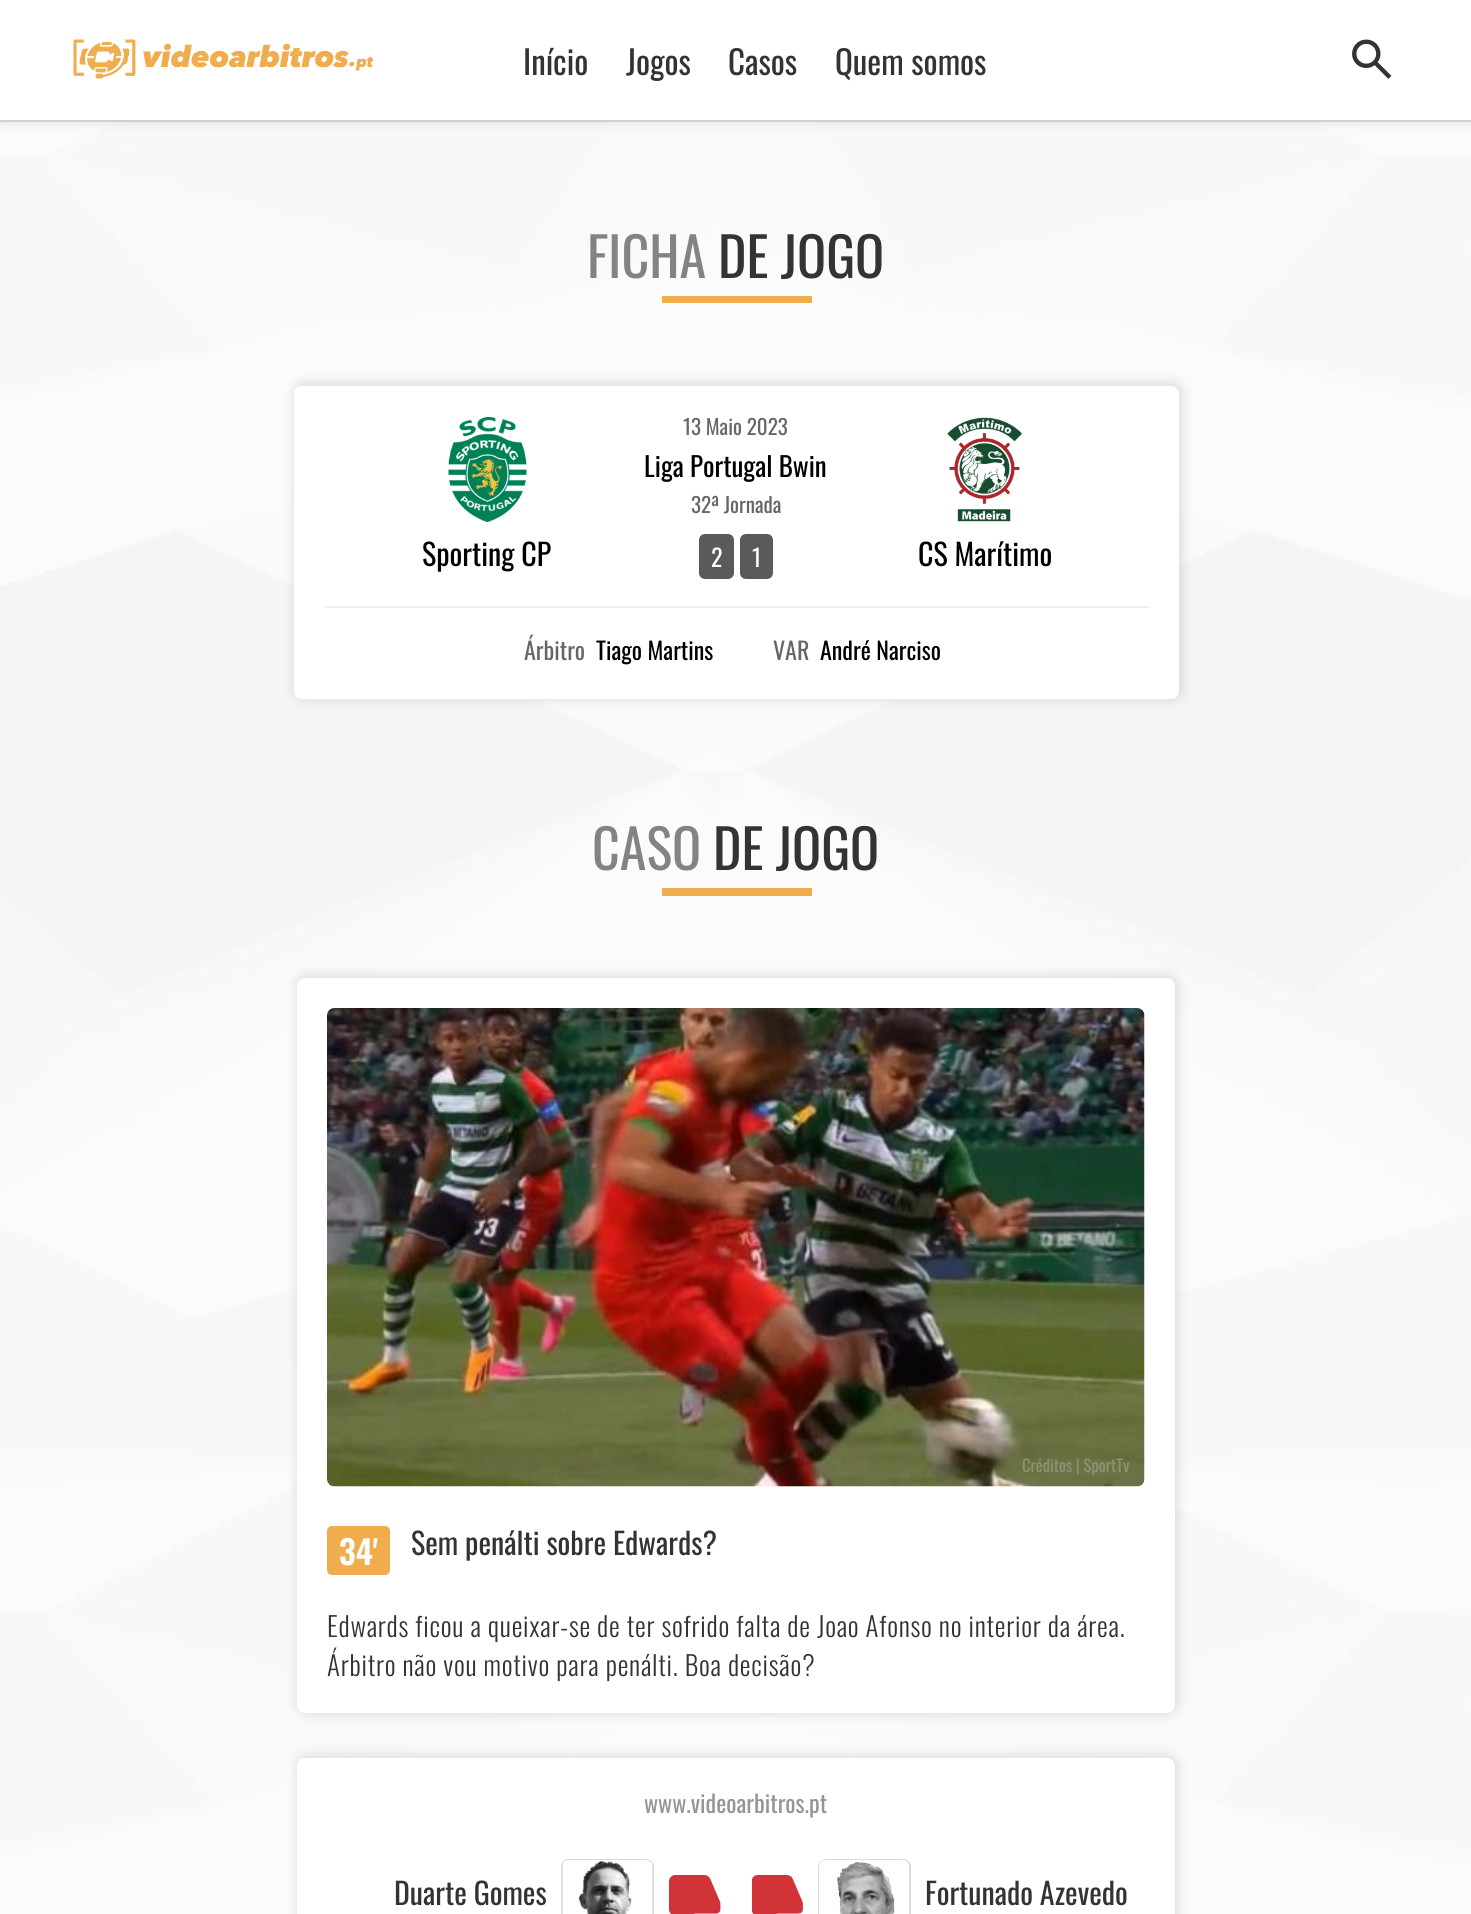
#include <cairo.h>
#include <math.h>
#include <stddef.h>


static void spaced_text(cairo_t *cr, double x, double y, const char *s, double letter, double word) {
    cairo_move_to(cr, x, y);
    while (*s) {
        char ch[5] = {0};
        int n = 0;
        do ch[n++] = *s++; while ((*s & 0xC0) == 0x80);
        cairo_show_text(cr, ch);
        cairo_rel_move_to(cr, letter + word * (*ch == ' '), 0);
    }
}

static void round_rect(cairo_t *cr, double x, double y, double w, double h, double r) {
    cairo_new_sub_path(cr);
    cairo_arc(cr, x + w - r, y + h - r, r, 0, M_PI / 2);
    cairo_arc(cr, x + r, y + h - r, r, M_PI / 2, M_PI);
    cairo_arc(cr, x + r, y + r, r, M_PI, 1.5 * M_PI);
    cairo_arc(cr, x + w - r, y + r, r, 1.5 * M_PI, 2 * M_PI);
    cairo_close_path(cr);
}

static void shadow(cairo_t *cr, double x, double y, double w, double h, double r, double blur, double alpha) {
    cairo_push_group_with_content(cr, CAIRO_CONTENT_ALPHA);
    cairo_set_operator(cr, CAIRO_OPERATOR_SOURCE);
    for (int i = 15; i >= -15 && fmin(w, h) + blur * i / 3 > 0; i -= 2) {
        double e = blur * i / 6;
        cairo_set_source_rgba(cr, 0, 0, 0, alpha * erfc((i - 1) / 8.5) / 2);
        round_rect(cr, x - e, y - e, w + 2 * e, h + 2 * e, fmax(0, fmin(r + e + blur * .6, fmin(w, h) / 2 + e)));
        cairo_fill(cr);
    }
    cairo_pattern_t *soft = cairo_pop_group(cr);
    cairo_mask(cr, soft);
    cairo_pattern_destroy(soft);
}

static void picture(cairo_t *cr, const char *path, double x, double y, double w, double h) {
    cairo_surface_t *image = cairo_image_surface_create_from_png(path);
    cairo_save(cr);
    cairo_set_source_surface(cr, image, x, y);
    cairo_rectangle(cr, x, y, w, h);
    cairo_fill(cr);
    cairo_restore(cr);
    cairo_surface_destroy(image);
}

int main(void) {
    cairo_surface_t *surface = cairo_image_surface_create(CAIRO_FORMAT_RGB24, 1471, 1914);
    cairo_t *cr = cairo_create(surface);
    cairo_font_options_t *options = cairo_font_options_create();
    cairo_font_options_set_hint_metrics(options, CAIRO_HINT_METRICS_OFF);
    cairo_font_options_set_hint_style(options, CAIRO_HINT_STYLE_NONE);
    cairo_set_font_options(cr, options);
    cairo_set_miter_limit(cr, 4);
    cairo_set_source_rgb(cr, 1, 1, 1);
    cairo_paint(cr);
    picture(cr, "img1.png", 0, 122, 1471, 1792);
    cairo_set_source_rgb(cr, 0, 0, 0);
    shadow(cr, -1, -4, 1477, 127, 0, 5, 0.1);
    cairo_set_source_rgb(cr, 1, 1, 1);
    cairo_rectangle(cr, 0, 0, 1471, 120);
    cairo_fill(cr);
    cairo_set_source_rgb(cr, 0.82, 0.82, 0.82);
    cairo_rectangle(cr, 0, 120, 1471, 2);
    cairo_fill(cr);
    picture(cr, "img2.png", 73, 39, 301, 40);
    cairo_select_font_face(cr, "Oswald", CAIRO_FONT_SLANT_NORMAL, CAIRO_FONT_WEIGHT_NORMAL);
    cairo_set_font_size(cr, 33);
    cairo_set_source_rgb(cr, 0.2, 0.2, 0.2);
    cairo_move_to(cr, 523, 75);
    cairo_show_text(cr, "Início");
    cairo_move_to(cr, 626, 75);
    cairo_show_text(cr, "Jogos");
    cairo_move_to(cr, 728, 75);
    cairo_show_text(cr, "Casos");
    cairo_move_to(cr, 835, 75);
    cairo_show_text(cr, "Quem somos");
    picture(cr, "img3.png", 1352, 39, 40, 40);
    cairo_set_font_size(cr, 54);
    cairo_set_source_rgb(cr, 0.514, 0.514, 0.514);
    cairo_move_to(cr, 587, 278);
    cairo_show_text(cr, "FICHA");
    cairo_set_source_rgb(cr, 0.2, 0.2, 0.2);
    cairo_move_to(cr, 718, 278);
    cairo_show_text(cr, "DE JOGO");
    cairo_set_source_rgb(cr, 0.941, 0.678, 0.306);
    cairo_rectangle(cr, 662, 296, 150, 7);
    cairo_fill(cr);
    cairo_set_source_rgb(cr, 0, 0, 0);
    shadow(cr, 293, 381, 891, 320, 11, 5, 0.1);
    cairo_set_source_rgb(cr, 1, 1, 1);
    round_rect(cr, 294, 386, 885, 313, 8);
    cairo_fill(cr);
    picture(cr, "img4.png", 448, 417, 79, 105);
    cairo_set_font_size(cr, 30);
    cairo_set_source_rgb(cr, 0, 0, 0);
    cairo_move_to(cr, 422, 566);
    cairo_show_text(cr, "Sporting CP");
    cairo_set_font_size(cr, 21);
    cairo_set_source_rgb(cr, 0.4, 0.4, 0.4);
    cairo_move_to(cr, 683, 435);
    cairo_show_text(cr, "13 Maio 2023");
    cairo_set_font_size(cr, 27);
    cairo_set_source_rgb(cr, 0, 0, 0);
    cairo_move_to(cr, 644, 477);
    cairo_show_text(cr, "Liga Portugal Bwin");
    cairo_set_font_size(cr, 21);
    cairo_set_source_rgb(cr, 0.4, 0.4, 0.4);
    cairo_move_to(cr, 691, 513);
    cairo_show_text(cr, "32ª Jornada");
    cairo_set_source_rgb(cr, 0.353, 0.353, 0.353);
    round_rect(cr, 699, 534, 35, 45, 6);
    cairo_fill(cr);
    cairo_set_font_size(cr, 24);
    cairo_set_source_rgb(cr, 1, 1, 1);
    cairo_move_to(cr, 711, 567);
    cairo_show_text(cr, "2");
    cairo_set_source_rgb(cr, 0.353, 0.353, 0.353);
    round_rect(cr, 740, 534, 33, 45, 6);
    cairo_fill(cr);
    cairo_set_source_rgb(cr, 1, 1, 1);
    cairo_move_to(cr, 752, 567);
    cairo_show_text(cr, "1");
    picture(cr, "img5.png", 947, 417, 76, 105);
    cairo_set_font_size(cr, 30);
    cairo_set_source_rgb(cr, 0, 0, 0);
    cairo_move_to(cr, 918, 566);
    cairo_show_text(cr, "CS Marítimo");
    cairo_set_source_rgb(cr, 0.945, 0.945, 0.945);
    cairo_rectangle(cr, 324, 606, 825, 2);
    cairo_fill(cr);
    cairo_set_font_size(cr, 24);
    cairo_set_source_rgb(cr, 0.4, 0.4, 0.4);
    cairo_move_to(cr, 524, 660);
    cairo_show_text(cr, "Árbitro");
    cairo_set_source_rgb(cr, 0, 0, 0);
    cairo_move_to(cr, 596, 660);
    cairo_show_text(cr, "Tiago Martins");
    cairo_set_source_rgb(cr, 0.4, 0.4, 0.4);
    cairo_move_to(cr, 773, 660);
    cairo_show_text(cr, "VAR");
    cairo_set_source_rgb(cr, 0, 0, 0);
    cairo_move_to(cr, 820, 660);
    cairo_show_text(cr, "André Narciso");
    cairo_set_font_size(cr, 54);
    cairo_set_source_rgb(cr, 0.514, 0.514, 0.514);
    cairo_move_to(cr, 592, 870);
    cairo_show_text(cr, "CASO");
    cairo_set_source_rgb(cr, 0.2, 0.2, 0.2);
    cairo_move_to(cr, 713, 870);
    cairo_show_text(cr, "DE JOGO");
    cairo_set_source_rgb(cr, 0.941, 0.678, 0.306);
    cairo_rectangle(cr, 662, 888, 150, 8);
    cairo_fill(cr);
    cairo_set_source_rgb(cr, 0, 0, 0);
    shadow(cr, 296, 974, 883, 741, 11, 5, 0.1);
    cairo_set_source_rgb(cr, 1, 1, 1);
    round_rect(cr, 297, 978, 878, 735, 8);
    cairo_fill(cr);
    picture(cr, "img6.png", 327, 1008, 818, 479);
    cairo_set_font_size(cr, 16.5);
    cairo_set_source_rgb(cr, 0.557, 0.576, 0.451);
    cairo_move_to(cr, 1022, 1472);
    cairo_show_text(cr, "Créditos | SportTv");
    cairo_set_source_rgb(cr, 0.941, 0.678, 0.306);
    round_rect(cr, 327, 1526, 63, 49, 5);
    cairo_fill(cr);
    cairo_select_font_face(cr, "Oswald SemiBold", CAIRO_FONT_SLANT_NORMAL, CAIRO_FONT_WEIGHT_NORMAL);
    cairo_set_font_size(cr, 33);
    cairo_set_source_rgb(cr, 1, 1, 1);
    cairo_move_to(cr, 339, 1565);
    cairo_show_text(cr, "34'");
    cairo_select_font_face(cr, "Oswald", CAIRO_FONT_SLANT_NORMAL, CAIRO_FONT_WEIGHT_NORMAL);
    cairo_set_font_size(cr, 30);
    cairo_set_source_rgb(cr, 0.2, 0.2, 0.2);
    cairo_move_to(cr, 411, 1555);
    cairo_show_text(cr, "Sem penálti sobre Edwards?");
    cairo_select_font_face(cr, "Oswald Light", CAIRO_FONT_SLANT_NORMAL, CAIRO_FONT_WEIGHT_NORMAL);
    cairo_set_font_size(cr, 27);
    spaced_text(cr, 327, 1637, "Edwards ficou a queixar-se de ter sofrido falta de Joao Afonso no interior da área.", 0.75, 0);
    spaced_text(cr, 327, 1676, "Árbitro não vou motivo para penálti. Boa decisão?", 0.75, 0);
    cairo_set_source_rgb(cr, 0, 0, 0);
    shadow(cr, 296, 1754, 883, 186, 11, 5, 0.1);
    cairo_set_source_rgb(cr, 1, 1, 1);
    round_rect(cr, 297, 1758, 878, 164, 8);
    cairo_fill(cr);
    cairo_select_font_face(cr, "Oswald", CAIRO_FONT_SLANT_NORMAL, CAIRO_FONT_WEIGHT_NORMAL);
    cairo_set_font_size(cr, 24);
    cairo_set_source_rgb(cr, 0.584, 0.584, 0.584);
    cairo_move_to(cr, 644, 1813);
    cairo_show_text(cr, "www.videoarbitros.pt");
    cairo_set_font_size(cr, 30);
    cairo_set_source_rgb(cr, 0.2, 0.2, 0.2);
    cairo_move_to(cr, 394, 1905);
    cairo_show_text(cr, "Duarte Gomes");
    round_rect(cr, 562, 1860, 91, 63, 7);
    cairo_set_source_rgb(cr, 0.859, 0.859, 0.859);
    cairo_stroke(cr);
    picture(cr, "img7.png", 562, 1860, 91, 54);
    picture(cr, "img8.png", 669, 1875, 52, 39);
    picture(cr, "img9.png", 752, 1875, 51, 39);
    round_rect(cr, 819, 1860, 91, 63, 7);
    cairo_stroke(cr);
    picture(cr, "img10.png", 819, 1860, 90, 54);
    cairo_set_source_rgb(cr, 0.2, 0.2, 0.2);
    cairo_move_to(cr, 925, 1905);
    cairo_show_text(cr, "Fortunado Azevedo");
    cairo_surface_write_to_png(surface, "page.png");
    cairo_font_options_destroy(options);
    cairo_destroy(cr);
    cairo_surface_destroy(surface);
    return 0;
}
